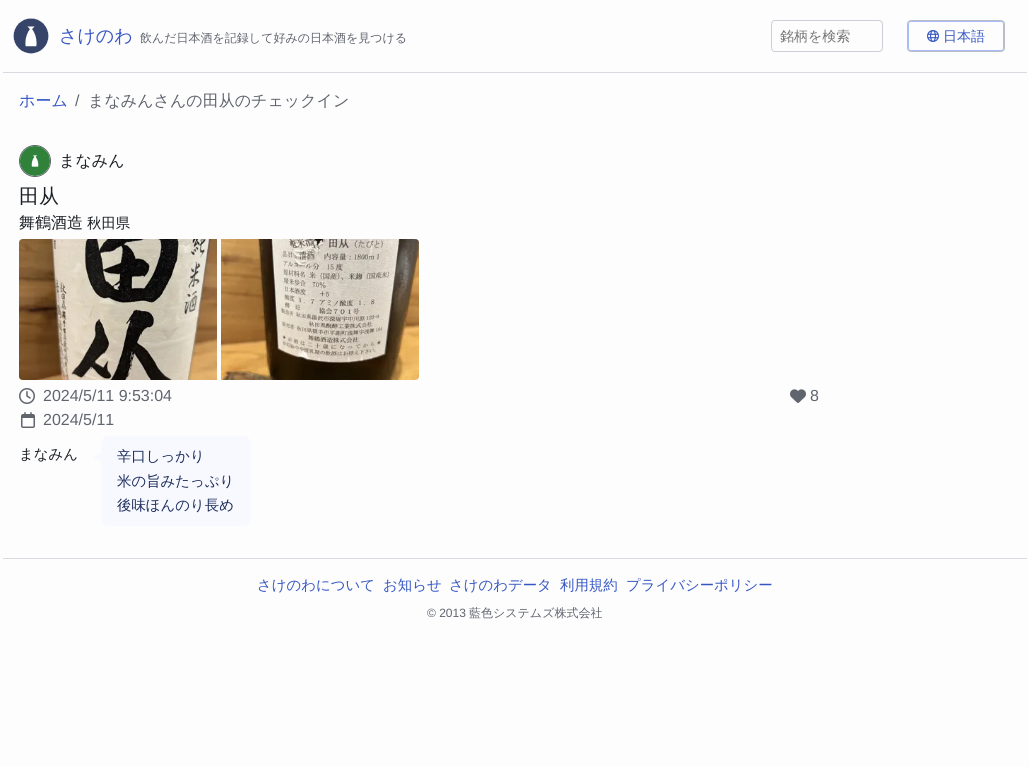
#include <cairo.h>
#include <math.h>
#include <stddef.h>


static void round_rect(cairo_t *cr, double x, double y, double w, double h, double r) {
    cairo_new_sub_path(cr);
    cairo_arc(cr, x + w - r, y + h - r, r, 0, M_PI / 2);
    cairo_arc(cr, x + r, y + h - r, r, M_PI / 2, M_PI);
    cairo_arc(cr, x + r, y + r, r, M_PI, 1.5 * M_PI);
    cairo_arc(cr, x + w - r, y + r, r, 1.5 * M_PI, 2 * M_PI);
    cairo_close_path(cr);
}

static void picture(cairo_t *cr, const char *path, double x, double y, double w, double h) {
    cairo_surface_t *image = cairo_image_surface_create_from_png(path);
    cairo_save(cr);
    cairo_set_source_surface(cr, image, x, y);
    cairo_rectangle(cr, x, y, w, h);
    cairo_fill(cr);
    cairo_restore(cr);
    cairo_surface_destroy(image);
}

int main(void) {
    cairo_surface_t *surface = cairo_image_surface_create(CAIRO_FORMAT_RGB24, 1029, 767);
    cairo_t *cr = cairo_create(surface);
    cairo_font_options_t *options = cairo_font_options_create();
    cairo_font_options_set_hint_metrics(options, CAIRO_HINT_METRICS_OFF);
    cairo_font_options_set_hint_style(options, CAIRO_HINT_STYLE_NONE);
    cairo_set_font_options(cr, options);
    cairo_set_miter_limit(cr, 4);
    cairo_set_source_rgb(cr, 0.992, 0.992, 0.996);
    cairo_paint(cr);
    cairo_set_source_rgb(cr, 0.851, 0.851, 0.878);
    cairo_rectangle(cr, 3, 72, 1024, 1);
    cairo_fill(cr);
    picture(cr, "img1.png", 13, 18, 36, 36);
    cairo_select_font_face(cr, "WenQuanYi Zen Hei Medium", CAIRO_FONT_SLANT_NORMAL, CAIRO_FONT_WEIGHT_NORMAL);
    cairo_set_font_size(cr, 18);
    cairo_set_source_rgb(cr, 0.212, 0.341, 0.765);
    cairo_move_to(cr, 59, 42);
    cairo_show_text(cr, "さけのわ");
    cairo_set_font_size(cr, 12);
    cairo_set_source_rgb(cr, 0.376, 0.392, 0.424);
    cairo_move_to(cr, 140, 42);
    cairo_show_text(cr, "飲んだ日本酒を記録して好みの日本酒を見つける");
    round_rect(cr, 771.5, 20.5, 111, 31, 3.5);
    cairo_set_source_rgb(cr, 0.804, 0.808, 0.839);
    cairo_set_line_width(cr, 1);
    cairo_stroke(cr);
    cairo_set_font_size(cr, 14);
    cairo_set_source_rgb(cr, 0.459, 0.459, 0.459);
    cairo_move_to(cr, 780, 41);
    cairo_show_text(cr, "銘柄を検索");
    round_rect(cr, 908.5, 21.5, 95, 29, 2.5);
    cairo_set_source_rgb(cr, 0.651, 0.749, 0.976);
    cairo_stroke(cr);
    round_rect(cr, 907.5, 20.5, 97, 31, 3.5);
    cairo_set_source_rgb(cr, 0.725, 0.733, 0.776);
    cairo_stroke(cr);
    picture(cr, "img2.png", 927, 30, 12, 12);
    cairo_set_source_rgb(cr, 0.212, 0.341, 0.765);
    cairo_move_to(cr, 943, 41);
    cairo_show_text(cr, "日本語");
    cairo_set_font_size(cr, 16);
    cairo_move_to(cr, 19, 106);
    cairo_show_text(cr, "ホーム");
    cairo_select_font_face(cr, "Liberation Sans", CAIRO_FONT_SLANT_NORMAL, CAIRO_FONT_WEIGHT_NORMAL);
    cairo_set_source_rgb(cr, 0.376, 0.392, 0.424);
    cairo_move_to(cr, 75, 106);
    cairo_show_text(cr, "/");
    cairo_select_font_face(cr, "WenQuanYi Zen Hei Medium", CAIRO_FONT_SLANT_NORMAL, CAIRO_FONT_WEIGHT_NORMAL);
    cairo_move_to(cr, 88, 106);
    cairo_show_text(cr, "まなみんさんの田从のチェックイン");
    cairo_new_path(cr);
    cairo_arc(cr, 35, 161, 15.5, 0, 2 * M_PI);
    cairo_stroke(cr);
    picture(cr, "img3.png", 20, 146, 30, 30);
    cairo_set_source_rgb(cr, 0.11, 0.125, 0.141);
    cairo_move_to(cr, 59, 166);
    cairo_show_text(cr, "まなみん");
    cairo_set_font_size(cr, 20);
    cairo_move_to(cr, 19, 203);
    cairo_show_text(cr, "田从");
    cairo_set_font_size(cr, 16);
    cairo_move_to(cr, 19, 228);
    cairo_show_text(cr, "舞鶴酒造");
    cairo_set_font_size(cr, 14.4);
    cairo_move_to(cr, 87, 228);
    cairo_show_text(cr, "秋田県");
    picture(cr, "img4.png", 19, 239, 198, 141);
    picture(cr, "img5.png", 221, 239, 198, 141);
    picture(cr, "img6.png", 19, 388, 16, 16);
    cairo_select_font_face(cr, "Liberation Sans", CAIRO_FONT_SLANT_NORMAL, CAIRO_FONT_WEIGHT_NORMAL);
    cairo_set_font_size(cr, 16);
    cairo_set_source_rgb(cr, 0.376, 0.392, 0.424);
    cairo_move_to(cr, 43, 401);
    cairo_show_text(cr, "2024/5/11 9:53:04");
    picture(cr, "img7.png", 21, 412, 14, 16);
    cairo_move_to(cr, 43, 425);
    cairo_show_text(cr, "2024/5/11");
    picture(cr, "img8.png", 790, 389, 16, 14);
    cairo_move_to(cr, 810, 401);
    cairo_show_text(cr, "8");
    cairo_select_font_face(cr, "WenQuanYi Zen Hei Medium", CAIRO_FONT_SLANT_NORMAL, CAIRO_FONT_WEIGHT_NORMAL);
    cairo_set_font_size(cr, 14.4);
    cairo_set_source_rgb(cr, 0.11, 0.125, 0.141);
    cairo_move_to(cr, 19, 459);
    cairo_show_text(cr, "まなみん");
    cairo_set_source_rgb(cr, 0.969, 0.976, 1);
    round_rect(cr, 101, 436, 150, 90, 8);
    cairo_fill(cr);
    cairo_new_path(cr);
    cairo_move_to(cr, 92.5, 457.5);
    cairo_line_to(cr, 102, 452.5);
    cairo_line_to(cr, 102, 462);
    cairo_line_to(cr, 101.5, 462);
    cairo_close_path(cr);
    cairo_fill(cr);
    cairo_set_source_rgb(cr, 0.114, 0.18, 0.361);
    cairo_move_to(cr, 117, 461);
    cairo_show_text(cr, "辛口しっかり");
    cairo_move_to(cr, 117, 486);
    cairo_show_text(cr, "米の旨みたっぷり");
    cairo_move_to(cr, 117, 510);
    cairo_show_text(cr, "後味ほんのり長め");
    cairo_set_source_rgb(cr, 0.851, 0.851, 0.878);
    cairo_rectangle(cr, 3, 558, 1024, 1);
    cairo_fill(cr);
    cairo_set_source_rgb(cr, 0.212, 0.341, 0.765);
    cairo_move_to(cr, 257, 590);
    cairo_show_text(cr, "さけのわについて");
    cairo_move_to(cr, 383, 590);
    cairo_show_text(cr, "お知らせ");
    cairo_move_to(cr, 449, 590);
    cairo_show_text(cr, "さけのわデータ");
    cairo_move_to(cr, 560, 590);
    cairo_show_text(cr, "利用規約");
    cairo_move_to(cr, 626, 590);
    cairo_show_text(cr, "プライバシーポリシー");
    cairo_select_font_face(cr, "Liberation Sans", CAIRO_FONT_SLANT_NORMAL, CAIRO_FONT_WEIGHT_NORMAL);
    cairo_set_font_size(cr, 12);
    cairo_set_source_rgb(cr, 0.376, 0.392, 0.424);
    cairo_move_to(cr, 427, 617);
    cairo_show_text(cr, "© 2013");
    cairo_select_font_face(cr, "WenQuanYi Zen Hei Medium", CAIRO_FONT_SLANT_NORMAL, CAIRO_FONT_WEIGHT_NORMAL);
    cairo_move_to(cr, 469, 617);
    cairo_show_text(cr, "藍色システムズ株式会社");
    cairo_surface_write_to_png(surface, "page.png");
    cairo_font_options_destroy(options);
    cairo_destroy(cr);
    cairo_surface_destroy(surface);
    return 0;
}
